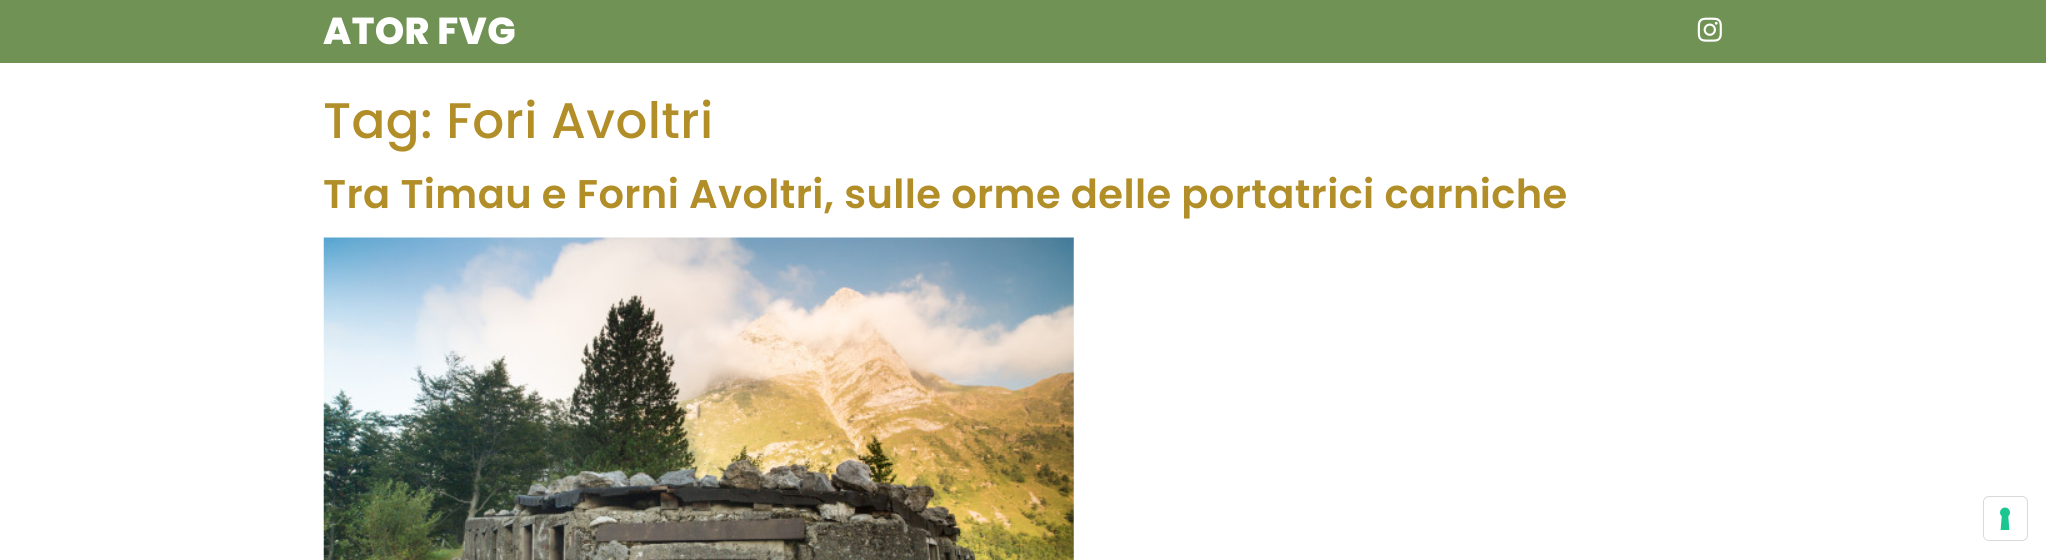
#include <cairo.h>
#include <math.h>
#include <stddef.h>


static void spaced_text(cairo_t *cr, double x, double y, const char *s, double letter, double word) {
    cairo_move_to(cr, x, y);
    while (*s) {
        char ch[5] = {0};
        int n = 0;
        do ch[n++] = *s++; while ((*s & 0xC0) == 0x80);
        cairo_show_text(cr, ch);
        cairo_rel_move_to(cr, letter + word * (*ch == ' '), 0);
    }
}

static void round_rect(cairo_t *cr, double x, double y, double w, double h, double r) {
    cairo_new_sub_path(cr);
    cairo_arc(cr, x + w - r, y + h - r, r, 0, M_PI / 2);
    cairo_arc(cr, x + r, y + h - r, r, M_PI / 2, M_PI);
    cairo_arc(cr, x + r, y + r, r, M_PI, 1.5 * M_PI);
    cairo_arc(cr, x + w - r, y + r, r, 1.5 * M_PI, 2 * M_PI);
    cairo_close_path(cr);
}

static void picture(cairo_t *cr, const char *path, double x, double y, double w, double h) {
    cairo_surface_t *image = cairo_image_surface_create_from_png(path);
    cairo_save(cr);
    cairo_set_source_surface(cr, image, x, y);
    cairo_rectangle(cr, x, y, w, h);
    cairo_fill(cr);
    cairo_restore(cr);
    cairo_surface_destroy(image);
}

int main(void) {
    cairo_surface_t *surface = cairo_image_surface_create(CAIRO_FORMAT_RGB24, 2046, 560);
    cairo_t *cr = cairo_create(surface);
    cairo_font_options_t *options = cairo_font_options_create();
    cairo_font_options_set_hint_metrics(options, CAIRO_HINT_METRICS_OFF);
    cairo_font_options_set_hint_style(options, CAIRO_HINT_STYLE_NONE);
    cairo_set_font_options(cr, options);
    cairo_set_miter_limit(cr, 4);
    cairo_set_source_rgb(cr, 1, 1, 1);
    cairo_paint(cr);
    cairo_set_source_rgb(cr, 0.439, 0.573, 0.333);
    cairo_rectangle(cr, 0, 0, 2046, 63);
    cairo_fill(cr);
    cairo_select_font_face(cr, "Poppins ExtraBold", CAIRO_FONT_SLANT_NORMAL, CAIRO_FONT_WEIGHT_NORMAL);
    cairo_set_font_size(cr, 37.5);
    cairo_set_source_rgb(cr, 1, 1, 1);
    spaced_text(cr, 323, 44, "ATOR FVG", 0.38, 0);
    picture(cr, "img1.png", 1697, 17, 25, 25);
    cairo_select_font_face(cr, "Poppins Medium", CAIRO_FONT_SLANT_NORMAL, CAIRO_FONT_WEIGHT_NORMAL);
    cairo_set_font_size(cr, 50);
    cairo_set_source_rgb(cr, 0.698, 0.557, 0.157);
    spaced_text(cr, 323, 138, "Tag: Fori Avoltri", 0.38, 0);
    cairo_select_font_face(cr, "Poppins SemiBold", CAIRO_FONT_SLANT_NORMAL, CAIRO_FONT_WEIGHT_NORMAL);
    cairo_set_font_size(cr, 40);
    spaced_text(cr, 323, 208, "Tra Timau e Forni Avoltri, sulle orme delle portatrici carniche", 0.38, 0);
    picture(cr, "img2.png", 323, 237, 751, 323);
    round_rect(cr, 1983.5, 496.5, 44, 44, 5.5);
    cairo_set_source_rgb(cr, 0.851, 0.851, 0.851);
    cairo_set_line_width(cr, 1);
    cairo_stroke(cr);
    cairo_set_source_rgb(cr, 1, 1, 1);
    round_rect(cr, 1984, 498, 42, 42, 5);
    cairo_fill(cr);
    picture(cr, "img3.png", 2000, 507, 10, 23);
    cairo_surface_write_to_png(surface, "page.png");
    cairo_font_options_destroy(options);
    cairo_destroy(cr);
    cairo_surface_destroy(surface);
    return 0;
}
